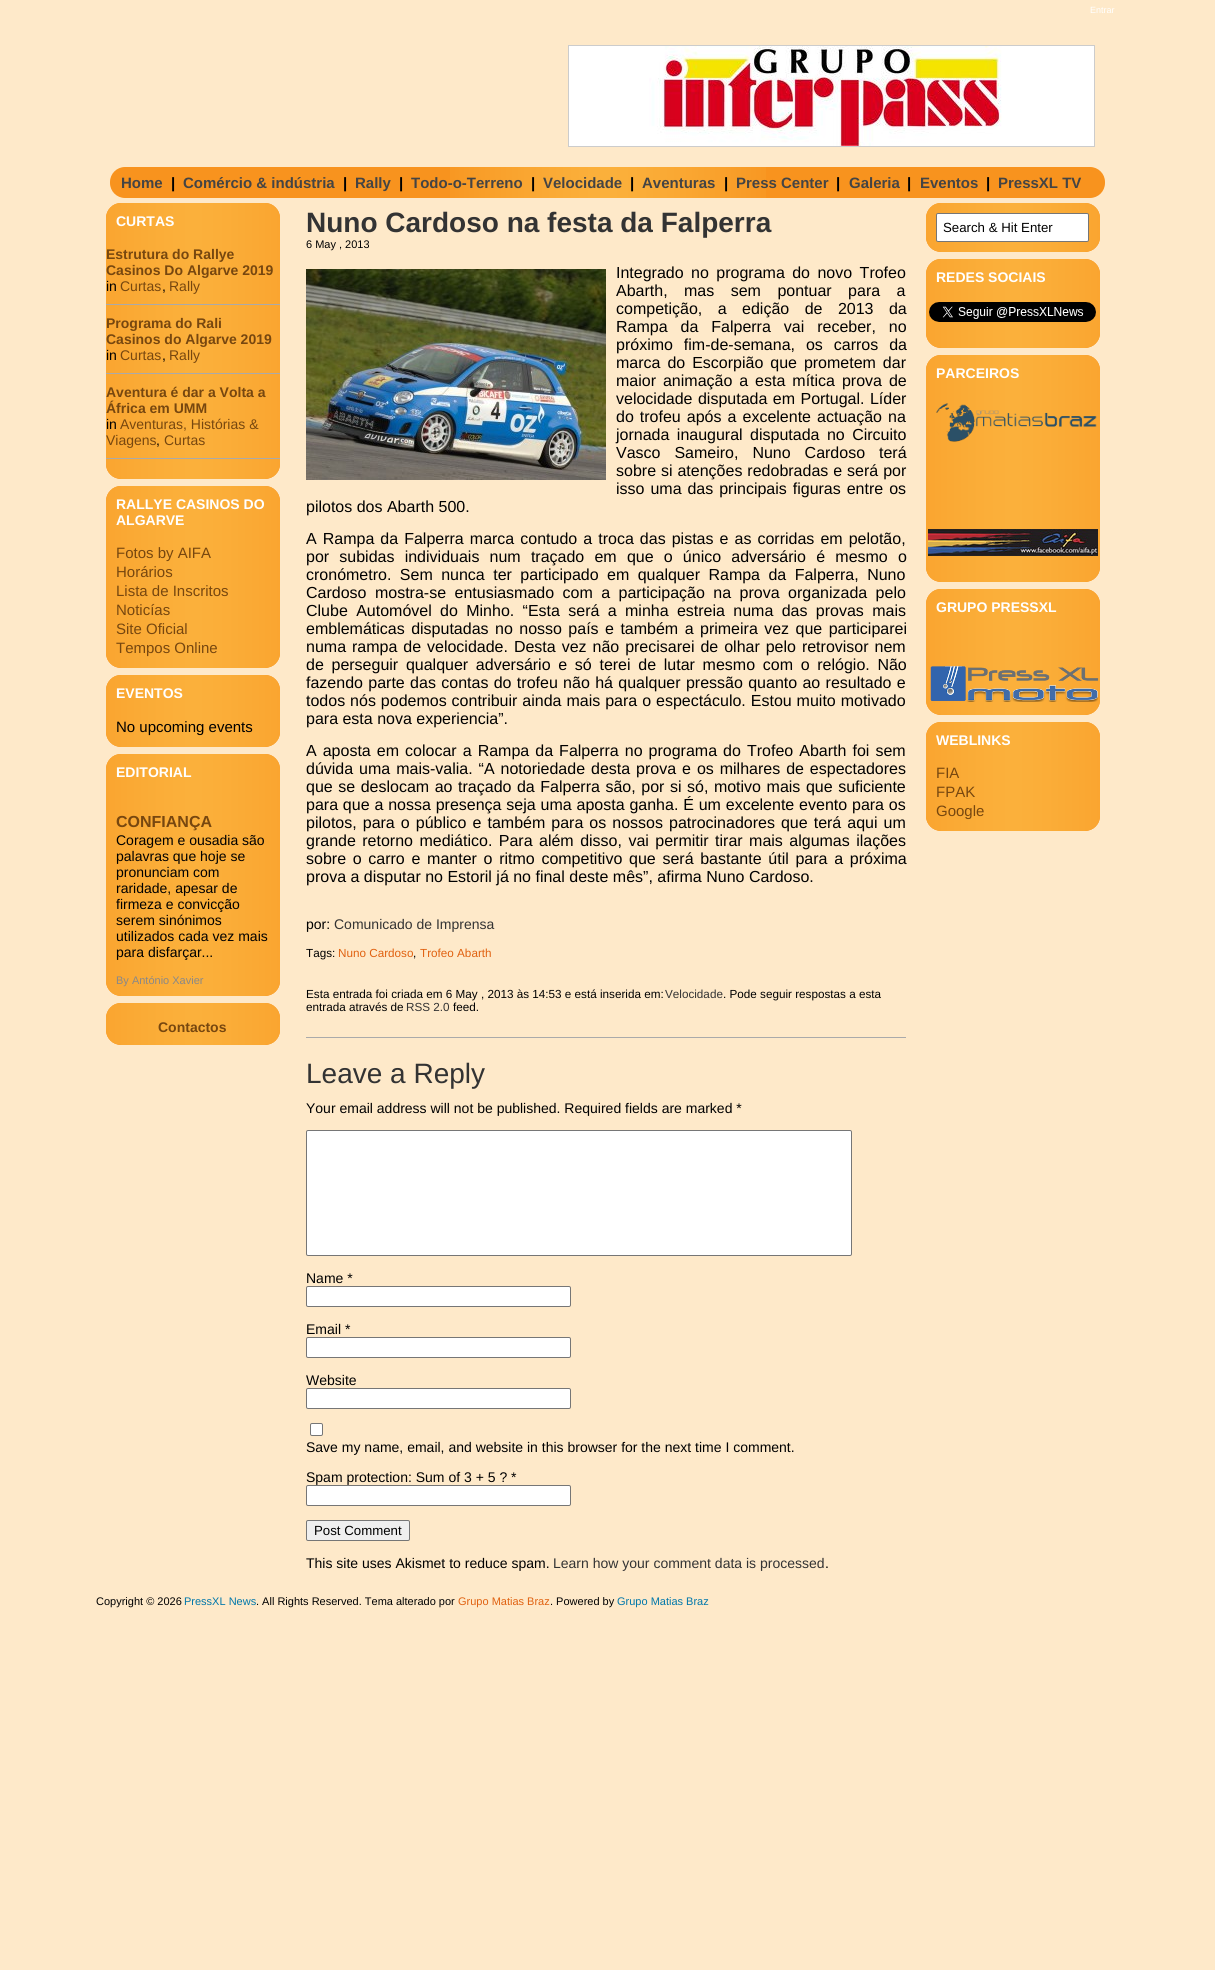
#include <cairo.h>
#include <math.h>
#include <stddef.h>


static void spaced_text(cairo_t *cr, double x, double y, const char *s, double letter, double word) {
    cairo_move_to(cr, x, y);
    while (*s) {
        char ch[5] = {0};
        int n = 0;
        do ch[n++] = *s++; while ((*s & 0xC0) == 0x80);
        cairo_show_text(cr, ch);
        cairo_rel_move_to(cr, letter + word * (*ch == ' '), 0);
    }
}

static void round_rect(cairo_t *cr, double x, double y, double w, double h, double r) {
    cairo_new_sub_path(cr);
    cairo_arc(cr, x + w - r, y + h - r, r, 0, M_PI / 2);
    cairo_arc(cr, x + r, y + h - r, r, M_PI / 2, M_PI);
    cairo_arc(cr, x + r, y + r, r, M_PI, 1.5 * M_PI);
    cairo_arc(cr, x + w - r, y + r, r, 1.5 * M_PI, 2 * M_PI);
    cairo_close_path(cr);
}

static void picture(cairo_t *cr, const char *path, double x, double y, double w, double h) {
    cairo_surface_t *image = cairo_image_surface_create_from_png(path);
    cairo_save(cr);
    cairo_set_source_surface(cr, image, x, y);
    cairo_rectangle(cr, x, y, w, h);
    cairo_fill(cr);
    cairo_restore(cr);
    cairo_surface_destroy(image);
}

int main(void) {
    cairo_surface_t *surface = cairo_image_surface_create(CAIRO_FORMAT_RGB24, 1215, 1970);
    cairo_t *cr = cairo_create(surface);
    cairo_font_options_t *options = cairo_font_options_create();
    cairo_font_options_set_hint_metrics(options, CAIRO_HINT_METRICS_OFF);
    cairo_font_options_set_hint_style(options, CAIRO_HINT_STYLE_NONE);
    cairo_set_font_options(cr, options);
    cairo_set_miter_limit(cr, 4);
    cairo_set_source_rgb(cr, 0.996, 0.914, 0.788);
    cairo_paint(cr);
    cairo_select_font_face(cr, "Liberation Sans", CAIRO_FONT_SLANT_NORMAL, CAIRO_FONT_WEIGHT_NORMAL);
    cairo_set_font_size(cr, 9);
    cairo_set_source_rgb(cr, 1, 1, 1);
    cairo_move_to(cr, 1090, 13);
    cairo_show_text(cr, "Entrar");
    cairo_rectangle(cr, 568.5, 45.5, 526, 101);
    cairo_set_source_rgb(cr, 0.8, 0.8, 0.8);
    cairo_set_line_width(cr, 1);
    cairo_stroke(cr);
    cairo_set_source_rgb(cr, 1, 1, 1);
    cairo_rectangle(cr, 569, 46, 525, 100);
    cairo_fill(cr);
    picture(cr, "img1.png", 649, 46, 353, 100);
    cairo_set_source_rgb(cr, 0.969, 0.576, 0.118);
    round_rect(cr, 110, 167, 995, 31, 15);
    cairo_fill(cr);
    picture(cr, "img2.png", 450, 167, 316, 31);
    cairo_select_font_face(cr, "Liberation Sans", CAIRO_FONT_SLANT_NORMAL, CAIRO_FONT_WEIGHT_BOLD);
    cairo_set_font_size(cr, 15);
    cairo_set_source_rgb(cr, 0.267, 0.267, 0.267);
    cairo_move_to(cr, 121, 188);
    cairo_show_text(cr, "Home");
    cairo_set_source_rgb(cr, 0, 0, 0);
    cairo_move_to(cr, 171, 188);
    cairo_show_text(cr, "|");
    cairo_set_source_rgb(cr, 0.267, 0.267, 0.267);
    cairo_move_to(cr, 183, 188);
    cairo_show_text(cr, "Comércio & indústria");
    cairo_set_source_rgb(cr, 0, 0, 0);
    cairo_move_to(cr, 343, 188);
    cairo_show_text(cr, "|");
    cairo_set_source_rgb(cr, 0.267, 0.267, 0.267);
    cairo_move_to(cr, 355, 188);
    cairo_show_text(cr, "Rally");
    cairo_set_source_rgb(cr, 0, 0, 0);
    cairo_move_to(cr, 399, 188);
    cairo_show_text(cr, "|");
    cairo_set_source_rgb(cr, 0.267, 0.267, 0.267);
    cairo_move_to(cr, 411, 188);
    cairo_show_text(cr, "Todo-o-Terreno");
    cairo_set_source_rgb(cr, 0, 0, 0);
    cairo_move_to(cr, 531, 188);
    cairo_show_text(cr, "|");
    cairo_set_source_rgb(cr, 0.267, 0.267, 0.267);
    cairo_move_to(cr, 543, 188);
    cairo_show_text(cr, "Velocidade");
    cairo_set_source_rgb(cr, 0, 0, 0);
    cairo_move_to(cr, 630, 188);
    cairo_show_text(cr, "|");
    cairo_set_source_rgb(cr, 0.267, 0.267, 0.267);
    cairo_move_to(cr, 642, 188);
    cairo_show_text(cr, "Aventuras");
    cairo_set_source_rgb(cr, 0, 0, 0);
    cairo_move_to(cr, 724, 188);
    cairo_show_text(cr, "|");
    cairo_set_source_rgb(cr, 0.267, 0.267, 0.267);
    cairo_move_to(cr, 736, 188);
    cairo_show_text(cr, "Press Center");
    cairo_set_source_rgb(cr, 0, 0, 0);
    cairo_move_to(cr, 836, 188);
    cairo_show_text(cr, "|");
    cairo_set_source_rgb(cr, 0.267, 0.267, 0.267);
    cairo_move_to(cr, 849, 188);
    cairo_show_text(cr, "Galeria");
    cairo_set_source_rgb(cr, 0, 0, 0);
    cairo_move_to(cr, 907, 188);
    cairo_show_text(cr, "|");
    cairo_set_source_rgb(cr, 0.267, 0.267, 0.267);
    cairo_move_to(cr, 920, 188);
    cairo_show_text(cr, "Eventos");
    cairo_set_source_rgb(cr, 0, 0, 0);
    cairo_move_to(cr, 986, 188);
    cairo_show_text(cr, "|");
    cairo_set_source_rgb(cr, 0.267, 0.267, 0.267);
    cairo_move_to(cr, 998, 188);
    cairo_show_text(cr, "PressXL TV");
    cairo_set_source_rgb(cr, 0.969, 0.576, 0.118);
    round_rect(cr, 106, 203, 174, 276, 15);
    cairo_fill(cr);
    picture(cr, "img3.png", 106, 203, 174, 276);
    cairo_set_font_size(cr, 14);
    cairo_set_source_rgb(cr, 1, 1, 1);
    cairo_move_to(cr, 116, 226);
    cairo_show_text(cr, "CURTAS");
    cairo_set_source_rgb(cr, 0.667, 0.667, 0.667);
    cairo_rectangle(cr, 106, 304, 174, 1);
    cairo_fill(cr);
    cairo_set_source_rgb(cr, 0.467, 0.278, 0.059);
    cairo_move_to(cr, 106, 259);
    cairo_show_text(cr, "Estrutura do Rallye");
    cairo_move_to(cr, 106, 275);
    cairo_show_text(cr, "Casinos Do Algarve 2019");
    cairo_select_font_face(cr, "Liberation Sans", CAIRO_FONT_SLANT_NORMAL, CAIRO_FONT_WEIGHT_NORMAL);
    cairo_set_source_rgb(cr, 0, 0, 0);
    cairo_move_to(cr, 106, 291);
    cairo_show_text(cr, "in");
    cairo_set_source_rgb(cr, 0.467, 0.278, 0.059);
    cairo_move_to(cr, 120, 291);
    cairo_show_text(cr, "Curtas");
    cairo_set_source_rgb(cr, 0, 0, 0);
    cairo_move_to(cr, 162, 291);
    cairo_show_text(cr, ",");
    cairo_set_source_rgb(cr, 0.467, 0.278, 0.059);
    cairo_move_to(cr, 169, 291);
    cairo_show_text(cr, "Rally");
    cairo_set_source_rgb(cr, 0.667, 0.667, 0.667);
    cairo_rectangle(cr, 106, 373, 174, 1);
    cairo_fill(cr);
    cairo_select_font_face(cr, "Liberation Sans", CAIRO_FONT_SLANT_NORMAL, CAIRO_FONT_WEIGHT_BOLD);
    cairo_set_source_rgb(cr, 0.467, 0.278, 0.059);
    cairo_move_to(cr, 106, 328);
    cairo_show_text(cr, "Programa do Rali");
    cairo_move_to(cr, 106, 344);
    cairo_show_text(cr, "Casinos do Algarve 2019");
    cairo_select_font_face(cr, "Liberation Sans", CAIRO_FONT_SLANT_NORMAL, CAIRO_FONT_WEIGHT_NORMAL);
    cairo_set_source_rgb(cr, 0, 0, 0);
    cairo_move_to(cr, 106, 360);
    cairo_show_text(cr, "in");
    cairo_set_source_rgb(cr, 0.467, 0.278, 0.059);
    cairo_move_to(cr, 120, 360);
    cairo_show_text(cr, "Curtas");
    cairo_set_source_rgb(cr, 0, 0, 0);
    cairo_move_to(cr, 162, 360);
    cairo_show_text(cr, ",");
    cairo_set_source_rgb(cr, 0.467, 0.278, 0.059);
    cairo_move_to(cr, 169, 360);
    cairo_show_text(cr, "Rally");
    cairo_set_source_rgb(cr, 0.667, 0.667, 0.667);
    cairo_rectangle(cr, 106, 458, 174, 1);
    cairo_fill(cr);
    cairo_select_font_face(cr, "Liberation Sans", CAIRO_FONT_SLANT_NORMAL, CAIRO_FONT_WEIGHT_BOLD);
    cairo_set_source_rgb(cr, 0.467, 0.278, 0.059);
    cairo_move_to(cr, 106, 397);
    cairo_show_text(cr, "Aventura é dar a Volta a");
    cairo_move_to(cr, 106, 413);
    cairo_show_text(cr, "África em UMM");
    cairo_select_font_face(cr, "Liberation Sans", CAIRO_FONT_SLANT_NORMAL, CAIRO_FONT_WEIGHT_NORMAL);
    cairo_set_source_rgb(cr, 0, 0, 0);
    cairo_move_to(cr, 106, 429);
    cairo_show_text(cr, "in");
    cairo_set_source_rgb(cr, 0.467, 0.278, 0.059);
    cairo_move_to(cr, 120, 429);
    cairo_show_text(cr, "Aventuras, Histórias &");
    cairo_move_to(cr, 106, 445);
    cairo_show_text(cr, "Viagens");
    cairo_set_source_rgb(cr, 0, 0, 0);
    cairo_move_to(cr, 156, 445);
    cairo_show_text(cr, ",");
    cairo_set_source_rgb(cr, 0.467, 0.278, 0.059);
    cairo_move_to(cr, 164, 445);
    cairo_show_text(cr, "Curtas");
    cairo_set_source_rgb(cr, 0.969, 0.576, 0.118);
    round_rect(cr, 106, 486, 174, 182, 15);
    cairo_fill(cr);
    picture(cr, "img4.png", 106, 486, 174, 182);
    cairo_select_font_face(cr, "Liberation Sans", CAIRO_FONT_SLANT_NORMAL, CAIRO_FONT_WEIGHT_BOLD);
    cairo_set_source_rgb(cr, 1, 1, 1);
    cairo_move_to(cr, 116, 509);
    cairo_show_text(cr, "RALLYE CASINOS DO");
    cairo_move_to(cr, 116, 525);
    cairo_show_text(cr, "ALGARVE");
    cairo_select_font_face(cr, "Liberation Sans", CAIRO_FONT_SLANT_NORMAL, CAIRO_FONT_WEIGHT_NORMAL);
    cairo_set_font_size(cr, 15);
    cairo_set_source_rgb(cr, 0.467, 0.278, 0.059);
    cairo_move_to(cr, 116, 558);
    cairo_show_text(cr, "Fotos by AIFA");
    cairo_move_to(cr, 116, 577);
    cairo_show_text(cr, "Horários");
    cairo_move_to(cr, 116, 596);
    cairo_show_text(cr, "Lista de Inscritos");
    cairo_move_to(cr, 116, 615);
    cairo_show_text(cr, "Noticías");
    cairo_move_to(cr, 116, 634);
    cairo_show_text(cr, "Site Oficial");
    cairo_move_to(cr, 116, 653);
    cairo_show_text(cr, "Tempos Online");
    cairo_set_source_rgb(cr, 0.969, 0.576, 0.118);
    round_rect(cr, 106, 675, 174, 72, 15);
    cairo_fill(cr);
    picture(cr, "img5.png", 106, 675, 174, 72);
    cairo_select_font_face(cr, "Liberation Sans", CAIRO_FONT_SLANT_NORMAL, CAIRO_FONT_WEIGHT_BOLD);
    cairo_set_font_size(cr, 14);
    cairo_set_source_rgb(cr, 1, 1, 1);
    cairo_move_to(cr, 116, 698);
    cairo_show_text(cr, "EVENTOS");
    cairo_select_font_face(cr, "Liberation Sans", CAIRO_FONT_SLANT_NORMAL, CAIRO_FONT_WEIGHT_NORMAL);
    cairo_set_font_size(cr, 15);
    cairo_set_source_rgb(cr, 0, 0, 0);
    cairo_move_to(cr, 116, 732);
    cairo_show_text(cr, "No upcoming events");
    cairo_set_source_rgb(cr, 0.969, 0.576, 0.118);
    round_rect(cr, 106, 754, 174, 242, 15);
    cairo_fill(cr);
    picture(cr, "img6.png", 106, 754, 174, 242);
    cairo_select_font_face(cr, "Liberation Sans", CAIRO_FONT_SLANT_NORMAL, CAIRO_FONT_WEIGHT_BOLD);
    cairo_set_font_size(cr, 14);
    cairo_set_source_rgb(cr, 1, 1, 1);
    cairo_move_to(cr, 116, 777);
    cairo_show_text(cr, "EDITORIAL");
    cairo_set_font_size(cr, 16);
    cairo_set_source_rgb(cr, 0.467, 0.278, 0.059);
    cairo_move_to(cr, 116, 827);
    cairo_show_text(cr, "CONFIANÇA");
    cairo_select_font_face(cr, "Liberation Sans", CAIRO_FONT_SLANT_NORMAL, CAIRO_FONT_WEIGHT_NORMAL);
    cairo_set_font_size(cr, 14);
    cairo_set_source_rgb(cr, 0, 0, 0);
    cairo_move_to(cr, 116, 845);
    cairo_show_text(cr, "Coragem e ousadia são");
    cairo_move_to(cr, 116, 861);
    cairo_show_text(cr, "palavras que hoje se");
    cairo_move_to(cr, 116, 877);
    cairo_show_text(cr, "pronunciam com");
    cairo_move_to(cr, 116, 893);
    cairo_show_text(cr, "raridade, apesar de");
    cairo_move_to(cr, 116, 909);
    cairo_show_text(cr, "firmeza e convicção");
    cairo_move_to(cr, 116, 925);
    cairo_show_text(cr, "serem sinónimos");
    cairo_move_to(cr, 116, 941);
    cairo_show_text(cr, "utilizados cada vez mais");
    cairo_move_to(cr, 116, 957);
    cairo_show_text(cr, "para disfarçar...");
    cairo_set_font_size(cr, 11);
    cairo_set_source_rgb(cr, 0.533, 0.533, 0.533);
    cairo_move_to(cr, 116, 984);
    cairo_show_text(cr, "By António Xavier");
    cairo_set_source_rgb(cr, 0.969, 0.576, 0.118);
    round_rect(cr, 106, 1003, 174, 42, 15);
    cairo_fill(cr);
    picture(cr, "img7.png", 106, 1003, 174, 42);
    cairo_select_font_face(cr, "Liberation Sans", CAIRO_FONT_SLANT_NORMAL, CAIRO_FONT_WEIGHT_BOLD);
    cairo_set_font_size(cr, 14);
    cairo_set_source_rgb(cr, 0.467, 0.278, 0.059);
    cairo_move_to(cr, 158, 1032);
    cairo_show_text(cr, "Contactos");
    cairo_set_source_rgb(cr, 0.667, 0.667, 0.667);
    cairo_rectangle(cr, 306, 1037, 600, 1);
    cairo_fill(cr);
    cairo_set_font_size(cr, 28);
    cairo_set_source_rgb(cr, 0.2, 0.2, 0.2);
    cairo_move_to(cr, 306, 232);
    cairo_show_text(cr, "Nuno Cardoso na festa da Falperra");
    cairo_select_font_face(cr, "Liberation Sans", CAIRO_FONT_SLANT_NORMAL, CAIRO_FONT_WEIGHT_NORMAL);
    cairo_set_font_size(cr, 11);
    cairo_set_source_rgb(cr, 0, 0, 0);
    cairo_move_to(cr, 306, 248);
    cairo_show_text(cr, "6 May , 2013");
    picture(cr, "img8.png", 306, 269, 300, 211);
    cairo_set_font_size(cr, 16);
    spaced_text(cr, 616, 278, "Integrado no programa do novo Trofeo", 0, 3);
    spaced_text(cr, 616, 296, "Abarth, mas sem pontuar para a", 0, 12);
    spaced_text(cr, 616, 314, "competição, a edição de 2013 da", 0, 11);
    spaced_text(cr, 616, 332, "Rampa da Falperra vai receber, no", 0, 8.5);
    spaced_text(cr, 616, 350, "próximo fim-de-semana, os carros da", 0, 6.5);
    spaced_text(cr, 616, 368, "marca do Escorpião que prometem dar", 0, 2.5);
    spaced_text(cr, 616, 386, "maior animação a esta mítica prova de", 0, 2.5);
    spaced_text(cr, 616, 404, "velocidade disputada em Portugal. Líder", 0, 1);
    spaced_text(cr, 616, 422, "do trofeu após a excelente actuação na", 0, 1.6);
    spaced_text(cr, 616, 440, "jornada inaugural disputada no Circuito", 0, 3);
    spaced_text(cr, 616, 458, "Vasco Sameiro, Nuno Cardoso terá", 0, 9.5);
    spaced_text(cr, 616, 476, "sobre si atenções redobradas e será por", 0, 0.5);
    spaced_text(cr, 616, 494, "isso uma das principais figuras entre os", 0, 1.5);
    cairo_move_to(cr, 306, 512);
    cairo_show_text(cr, "pilotos dos Abarth 500.");
    spaced_text(cr, 306, 544, "A Rampa da Falperra marca contudo a troca das pistas e as corridas em pelotão,", 0, 1.6);
    spaced_text(cr, 306, 562, "por subidas individuais num traçado em que o único adversário é mesmo o", 0, 5.75);
    spaced_text(cr, 306, 580, "cronómetro. Sem nunca ter participado em qualquer Rampa da Falperra, Nuno", 0, 4);
    spaced_text(cr, 306, 598, "Cardoso mostra-se entusiasmado com a participação na prova organizada pelo", 0, 4);
    spaced_text(cr, 306, 616, "Clube Automóvel do Minho. “Esta será a minha estreia numa das provas mais", 0, 3.9);
    spaced_text(cr, 306, 634, "emblemáticas disputadas no nosso país e também a primeira vez que participarei", 0, 2);
    spaced_text(cr, 306, 652, "numa rampa de velocidade. Desta vez não precisarei de olhar pelo retrovisor nem", 0, 1.5);
    spaced_text(cr, 306, 670, "de perseguir qualquer adversário e só terei de lutar mesmo com o relógio. Não", 0, 3.25);
    spaced_text(cr, 306, 688, "fazendo parte das contas do trofeu não há qualquer pressão quanto ao resultado e", 0, 0.9);
    spaced_text(cr, 306, 706, "todos nós podemos contribuir ainda mais para o espectáculo. Estou muito motivado", 0, 0.5);
    cairo_move_to(cr, 306, 724);
    cairo_show_text(cr, "para esta nova experiencia”.");
    spaced_text(cr, 306, 756, "A aposta em colocar a Rampa da Falperra no programa do Trofeo Abarth foi sem", 0, 1.6);
    spaced_text(cr, 306, 774, "dúvida uma mais-valia. “A notoriedade desta prova e os milhares de espectadores", 0, 1.5);
    spaced_text(cr, 306, 792, "que se deslocam ao traçado da Falperra são, por si só, motivo mais que suficiente", 0, 1.1);
    spaced_text(cr, 306, 810, "para que a nossa presença seja uma aposta ganha. É um excelente evento para os", 0, 0.4);
    spaced_text(cr, 306, 828, "pilotos, para o público e também para os nossos patrocinadores que terá aqui um", 0, 1.6);
    spaced_text(cr, 306, 846, "grande retorno mediático. Para além disso, vai permitir tirar mais algumas ilações", 0, 2);
    spaced_text(cr, 306, 864, "sobre o carro e manter o ritmo competitivo que será bastante útil para a próxima", 0, 2.25);
    cairo_move_to(cr, 306, 882);
    cairo_show_text(cr, "prova a disputar no Estoril já no final deste mês”, afirma Nuno Cardoso.");
    cairo_set_font_size(cr, 14);
    cairo_move_to(cr, 306, 929);
    cairo_show_text(cr, "por:");
    cairo_set_source_rgb(cr, 0.2, 0.2, 0.2);
    cairo_move_to(cr, 334, 929);
    cairo_show_text(cr, "Comunicado de Imprensa");
    cairo_set_font_size(cr, 11.7);
    cairo_set_source_rgb(cr, 0, 0, 0);
    cairo_move_to(cr, 306, 957);
    cairo_show_text(cr, "Tags:");
    cairo_set_source_rgb(cr, 0.878, 0.38, 0.063);
    cairo_move_to(cr, 338, 957);
    cairo_show_text(cr, "Nuno Cardoso");
    cairo_set_source_rgb(cr, 0, 0, 0);
    cairo_move_to(cr, 413, 957);
    cairo_show_text(cr, ",");
    cairo_set_source_rgb(cr, 0.878, 0.38, 0.063);
    cairo_move_to(cr, 420, 957);
    cairo_show_text(cr, "Trofeo Abarth");
    cairo_set_source_rgb(cr, 0, 0, 0);
    cairo_move_to(cr, 306, 998);
    cairo_show_text(cr, "Esta entrada foi criada em 6 May , 2013 às 14:53 e está inserida em:");
    cairo_set_source_rgb(cr, 0.2, 0.2, 0.2);
    cairo_move_to(cr, 665, 998);
    cairo_show_text(cr, "Velocidade");
    cairo_set_source_rgb(cr, 0, 0, 0);
    cairo_move_to(cr, 723, 998);
    cairo_show_text(cr, ". Pode seguir respostas a esta");
    cairo_move_to(cr, 306, 1011);
    cairo_show_text(cr, "entrada através de");
    cairo_set_source_rgb(cr, 0.2, 0.2, 0.2);
    cairo_move_to(cr, 406, 1011);
    cairo_show_text(cr, "RSS 2.0");
    cairo_set_source_rgb(cr, 0, 0, 0);
    cairo_move_to(cr, 453, 1011);
    cairo_show_text(cr, "feed.");
    cairo_set_font_size(cr, 28);
    cairo_set_source_rgb(cr, 0.2, 0.2, 0.2);
    cairo_move_to(cr, 306, 1083);
    cairo_show_text(cr, "Leave a Reply");
    cairo_set_font_size(cr, 14);
    cairo_set_source_rgb(cr, 0, 0, 0);
    cairo_move_to(cr, 306, 1113);
    cairo_show_text(cr, "Your email address will not be published. Required fields are marked *");
    cairo_set_source_rgb(cr, 1, 1, 1);
    round_rect(cr, 306.5, 1130.5, 545, 125, 1.5);
    cairo_fill_preserve(cr);
    cairo_set_source_rgb(cr, 0.463, 0.463, 0.463);
    cairo_stroke(cr);
    cairo_set_source_rgb(cr, 0, 0, 0);
    cairo_move_to(cr, 306, 1283);
    cairo_show_text(cr, "Name *");
    cairo_set_source_rgb(cr, 1, 1, 1);
    round_rect(cr, 306.5, 1286.5, 264, 20, 1.5);
    cairo_fill_preserve(cr);
    cairo_set_source_rgb(cr, 0.463, 0.463, 0.463);
    cairo_stroke(cr);
    cairo_set_source_rgb(cr, 0, 0, 0);
    cairo_move_to(cr, 306, 1334);
    cairo_show_text(cr, "Email *");
    cairo_set_source_rgb(cr, 1, 1, 1);
    round_rect(cr, 306.5, 1337.5, 264, 20, 1.5);
    cairo_fill_preserve(cr);
    cairo_set_source_rgb(cr, 0.463, 0.463, 0.463);
    cairo_stroke(cr);
    cairo_set_source_rgb(cr, 0, 0, 0);
    cairo_move_to(cr, 306, 1385);
    cairo_show_text(cr, "Website");
    cairo_set_source_rgb(cr, 1, 1, 1);
    round_rect(cr, 306.5, 1388.5, 264, 20, 1.5);
    cairo_fill_preserve(cr);
    cairo_set_source_rgb(cr, 0.463, 0.463, 0.463);
    cairo_stroke(cr);
    cairo_set_source_rgb(cr, 1, 1, 1);
    round_rect(cr, 310.5, 1423.5, 12, 12, 1.5);
    cairo_fill_preserve(cr);
    cairo_set_source_rgb(cr, 0.463, 0.463, 0.463);
    cairo_stroke(cr);
    cairo_set_source_rgb(cr, 0, 0, 0);
    cairo_move_to(cr, 306, 1452);
    cairo_show_text(cr, "Save my name, email, and website in this browser for the next time I comment.");
    cairo_move_to(cr, 306, 1482);
    cairo_show_text(cr, "Spam protection: Sum of 3 + 5 ? *");
    cairo_set_source_rgb(cr, 1, 1, 1);
    round_rect(cr, 306.5, 1485.5, 264, 20, 1.5);
    cairo_fill_preserve(cr);
    cairo_set_source_rgb(cr, 0.463, 0.463, 0.463);
    cairo_stroke(cr);
    cairo_set_source_rgb(cr, 0.937, 0.937, 0.937);
    round_rect(cr, 306.5, 1520.5, 103, 20, 1.5);
    cairo_fill_preserve(cr);
    cairo_set_source_rgb(cr, 0.463, 0.463, 0.463);
    cairo_stroke(cr);
    cairo_set_font_size(cr, 13.25);
    cairo_set_source_rgb(cr, 0, 0, 0);
    cairo_move_to(cr, 314, 1535);
    cairo_show_text(cr, "Post Comment");
    cairo_set_font_size(cr, 14);
    cairo_move_to(cr, 306, 1568);
    cairo_show_text(cr, "This site uses Akismet to reduce spam.");
    cairo_set_source_rgb(cr, 0.2, 0.2, 0.2);
    cairo_move_to(cr, 553, 1568);
    cairo_show_text(cr, "Learn how your comment data is processed");
    cairo_set_source_rgb(cr, 0, 0, 0);
    cairo_move_to(cr, 825, 1568);
    cairo_show_text(cr, ".");
    cairo_set_source_rgb(cr, 0.969, 0.576, 0.118);
    round_rect(cr, 926, 203, 174, 49, 15);
    cairo_fill(cr);
    picture(cr, "img9.png", 926, 203, 174, 49);
    cairo_set_source_rgb(cr, 1, 1, 1);
    round_rect(cr, 936.5, 213.5, 152, 28, 1.5);
    cairo_fill_preserve(cr);
    cairo_set_source_rgb(cr, 0.463, 0.463, 0.463);
    cairo_stroke(cr);
    cairo_set_font_size(cr, 13.25);
    cairo_set_source_rgb(cr, 0, 0, 0);
    cairo_move_to(cr, 943, 232);
    cairo_show_text(cr, "Search & Hit Enter");
    cairo_set_source_rgb(cr, 0.969, 0.576, 0.118);
    round_rect(cr, 926, 259, 174, 89, 15);
    cairo_fill(cr);
    picture(cr, "img10.png", 926, 259, 174, 89);
    cairo_select_font_face(cr, "Liberation Sans", CAIRO_FONT_SLANT_NORMAL, CAIRO_FONT_WEIGHT_BOLD);
    cairo_set_font_size(cr, 14);
    cairo_set_source_rgb(cr, 1, 1, 1);
    cairo_move_to(cr, 936, 282);
    cairo_show_text(cr, "REDES SOCIAIS");
    picture(cr, "img11.png", 929, 302, 167, 20);
    cairo_set_source_rgb(cr, 0.969, 0.576, 0.118);
    round_rect(cr, 926, 355, 174, 227, 15);
    cairo_fill(cr);
    picture(cr, "img12.png", 926, 355, 174, 227);
    cairo_set_source_rgb(cr, 1, 1, 1);
    cairo_move_to(cr, 936, 378);
    cairo_show_text(cr, "PARCEIROS");
    picture(cr, "img13.png", 936, 403, 161, 39);
    picture(cr, "img14.png", 928, 529, 170, 27);
    cairo_set_source_rgb(cr, 0.969, 0.576, 0.118);
    round_rect(cr, 926, 589, 174, 126, 15);
    cairo_fill(cr);
    picture(cr, "img15.png", 926, 589, 174, 126);
    cairo_set_source_rgb(cr, 1, 1, 1);
    cairo_move_to(cr, 936, 612);
    cairo_show_text(cr, "GRUPO PRESSXL");
    picture(cr, "img16.png", 930, 666, 169, 36);
    cairo_set_source_rgb(cr, 0.969, 0.576, 0.118);
    round_rect(cr, 926, 722, 174, 109, 15);
    cairo_fill(cr);
    picture(cr, "img17.png", 926, 722, 174, 109);
    cairo_set_source_rgb(cr, 1, 1, 1);
    cairo_move_to(cr, 936, 745);
    cairo_show_text(cr, "WEBLINKS");
    cairo_select_font_face(cr, "Liberation Sans", CAIRO_FONT_SLANT_NORMAL, CAIRO_FONT_WEIGHT_NORMAL);
    cairo_set_font_size(cr, 15);
    cairo_set_source_rgb(cr, 0.467, 0.278, 0.059);
    cairo_move_to(cr, 936, 778);
    cairo_show_text(cr, "FIA");
    cairo_move_to(cr, 936, 797);
    cairo_show_text(cr, "FPAK");
    cairo_move_to(cr, 936, 816);
    cairo_show_text(cr, "Google");
    cairo_set_font_size(cr, 11);
    cairo_set_source_rgb(cr, 0, 0, 0);
    cairo_move_to(cr, 96, 1605);
    cairo_show_text(cr, "Copyright © 2026");
    cairo_set_source_rgb(cr, 0, 0.467, 0.667);
    cairo_move_to(cr, 184, 1605);
    cairo_show_text(cr, "PressXL News");
    cairo_set_source_rgb(cr, 0, 0, 0);
    cairo_move_to(cr, 256, 1605);
    cairo_show_text(cr, ". All Rights Reserved. Tema alterado por");
    cairo_set_source_rgb(cr, 0.878, 0.38, 0.063);
    cairo_move_to(cr, 458, 1605);
    cairo_show_text(cr, "Grupo Matias Braz");
    cairo_set_source_rgb(cr, 0, 0, 0);
    cairo_move_to(cr, 550, 1605);
    cairo_show_text(cr, ". Powered by");
    cairo_set_source_rgb(cr, 0, 0.467, 0.667);
    cairo_move_to(cr, 617, 1605);
    cairo_show_text(cr, "Grupo Matias Braz");
    cairo_surface_write_to_png(surface, "page.png");
    cairo_font_options_destroy(options);
    cairo_destroy(cr);
    cairo_surface_destroy(surface);
    return 0;
}
